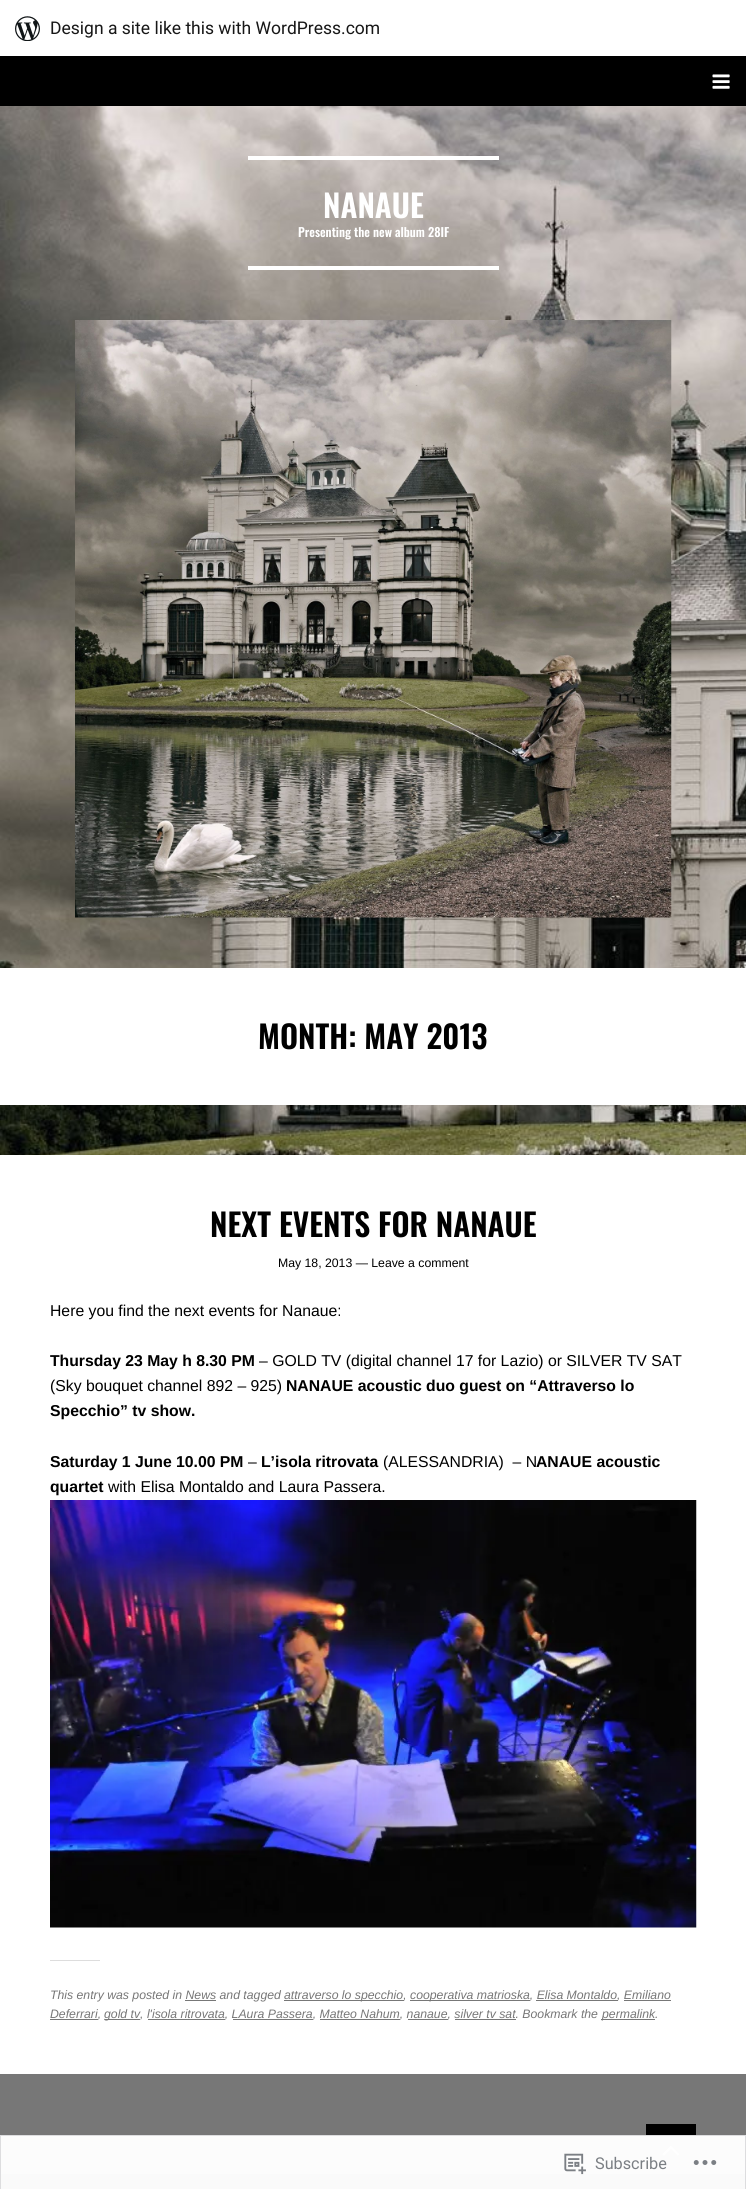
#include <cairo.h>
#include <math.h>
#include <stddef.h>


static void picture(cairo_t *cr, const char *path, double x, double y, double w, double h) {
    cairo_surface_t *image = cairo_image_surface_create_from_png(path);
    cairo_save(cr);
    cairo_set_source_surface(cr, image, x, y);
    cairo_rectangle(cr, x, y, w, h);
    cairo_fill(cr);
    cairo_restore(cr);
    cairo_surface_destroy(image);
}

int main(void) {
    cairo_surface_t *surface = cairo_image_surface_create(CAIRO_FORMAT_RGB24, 746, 2189);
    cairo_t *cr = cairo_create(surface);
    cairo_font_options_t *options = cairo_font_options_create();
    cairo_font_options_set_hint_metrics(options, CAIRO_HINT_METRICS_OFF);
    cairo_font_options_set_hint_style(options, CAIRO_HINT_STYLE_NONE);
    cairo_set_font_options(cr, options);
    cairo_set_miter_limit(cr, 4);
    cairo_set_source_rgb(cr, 0.467, 0.467, 0.467);
    cairo_paint(cr);
    cairo_set_source_rgb(cr, 0.988, 0.988, 0.988);
    cairo_rectangle(cr, 1, 2136, 744, 38);
    cairo_fill(cr);
    picture(cr, "img1.png", 0, 106, 746, 1049);
    cairo_set_source_rgb(cr, 1, 1, 1);
    cairo_rectangle(cr, 0, 0, 746, 56);
    cairo_fill(cr);
    picture(cr, "img2.png", 15, 16, 25, 25);
    cairo_select_font_face(cr, "Roboto", CAIRO_FONT_SLANT_NORMAL, CAIRO_FONT_WEIGHT_NORMAL);
    cairo_set_font_size(cr, 17.5);
    cairo_set_source_rgb(cr, 0.09, 0.09, 0.09);
    cairo_move_to(cr, 50, 34);
    cairo_show_text(cr, "Design a site like this with WordPress.com");
    cairo_set_source_rgb(cr, 0, 0, 0);
    cairo_rectangle(cr, 0, 56, 746, 50);
    cairo_fill(cr);
    picture(cr, "img3.png", 712, 74, 18, 15);
    cairo_set_source_rgb(cr, 1, 1, 1);
    cairo_rectangle(cr, 248, 156, 251, 4);
    cairo_fill(cr);
    cairo_rectangle(cr, 248, 266, 251, 4);
    cairo_fill(cr);
    cairo_select_font_face(cr, "Oswald SemiBold", CAIRO_FONT_SLANT_NORMAL, CAIRO_FONT_WEIGHT_NORMAL);
    cairo_set_font_size(cr, 31.5);
    cairo_move_to(cr, 323, 218);
    cairo_show_text(cr, "NANAUE");
    cairo_set_font_size(cr, 12.25);
    cairo_move_to(cr, 298, 237);
    cairo_show_text(cr, "Presenting the new album 28IF");
    picture(cr, "img4.png", 75, 320, 597, 598);
    cairo_rectangle(cr, 0, 968, 746, 137);
    cairo_fill(cr);
    cairo_set_font_size(cr, 31.5);
    cairo_set_source_rgb(cr, 0, 0, 0);
    cairo_move_to(cr, 258, 1049);
    cairo_show_text(cr, "MONTH: MAY 2013");
    cairo_set_source_rgb(cr, 1, 1, 1);
    cairo_rectangle(cr, 0, 1155, 746, 919);
    cairo_fill(cr);
    cairo_set_source_rgb(cr, 0, 0, 0);
    cairo_move_to(cr, 210, 1237);
    cairo_show_text(cr, "NEXT EVENTS FOR NANAUE");
    cairo_select_font_face(cr, "Arimo", CAIRO_FONT_SLANT_NORMAL, CAIRO_FONT_WEIGHT_NORMAL);
    cairo_set_font_size(cr, 12.25);
    cairo_move_to(cr, 278, 1267);
    cairo_show_text(cr, "May 18, 2013 — Leave a comment");
    cairo_set_font_size(cr, 15.75);
    cairo_move_to(cr, 50, 1316);
    cairo_show_text(cr, "Here you find the next events for Nanaue:");
    cairo_select_font_face(cr, "Arimo", CAIRO_FONT_SLANT_NORMAL, CAIRO_FONT_WEIGHT_BOLD);
    cairo_move_to(cr, 50, 1366);
    cairo_show_text(cr, "Thursday 23 May h 8.30 PM");
    cairo_select_font_face(cr, "Arimo", CAIRO_FONT_SLANT_NORMAL, CAIRO_FONT_WEIGHT_NORMAL);
    cairo_move_to(cr, 259, 1366);
    cairo_show_text(cr, "– GOLD TV (digital channel 17 for Lazio) or SILVER TV SAT");
    cairo_move_to(cr, 50, 1391);
    cairo_show_text(cr, "(Sky bouquet channel 892 – 925)");
    cairo_select_font_face(cr, "Arimo", CAIRO_FONT_SLANT_NORMAL, CAIRO_FONT_WEIGHT_BOLD);
    cairo_move_to(cr, 286, 1391);
    cairo_show_text(cr, "NANAUE acoustic duo guest on “Attraverso lo");
    cairo_move_to(cr, 50, 1416);
    cairo_show_text(cr, "Specchio” tv show.");
    cairo_move_to(cr, 50, 1467);
    cairo_show_text(cr, "Saturday 1 June 10.00 PM");
    cairo_select_font_face(cr, "Arimo", CAIRO_FONT_SLANT_NORMAL, CAIRO_FONT_WEIGHT_NORMAL);
    cairo_move_to(cr, 248, 1467);
    cairo_show_text(cr, "–");
    cairo_select_font_face(cr, "Arimo", CAIRO_FONT_SLANT_NORMAL, CAIRO_FONT_WEIGHT_BOLD);
    cairo_move_to(cr, 261, 1467);
    cairo_show_text(cr, "L’isola ritrovata");
    cairo_select_font_face(cr, "Arimo", CAIRO_FONT_SLANT_NORMAL, CAIRO_FONT_WEIGHT_NORMAL);
    cairo_move_to(cr, 383, 1467);
    cairo_show_text(cr, "(ALESSANDRIA)  – N");
    cairo_select_font_face(cr, "Arimo", CAIRO_FONT_SLANT_NORMAL, CAIRO_FONT_WEIGHT_BOLD);
    cairo_move_to(cr, 536, 1467);
    cairo_show_text(cr, "ANAUE acoustic");
    cairo_move_to(cr, 50, 1492);
    cairo_show_text(cr, "quartet");
    cairo_select_font_face(cr, "Arimo", CAIRO_FONT_SLANT_NORMAL, CAIRO_FONT_WEIGHT_NORMAL);
    cairo_move_to(cr, 108, 1492);
    cairo_show_text(cr, "with Elisa Montaldo and Laura Passera.");
    picture(cr, "img5.png", 50, 1500, 647, 428);
    cairo_set_source_rgb(cr, 0.867, 0.867, 0.867);
    cairo_rectangle(cr, 50, 1960, 50, 1);
    cairo_fill(cr);
    cairo_select_font_face(cr, "Arimo", CAIRO_FONT_SLANT_ITALIC, CAIRO_FONT_WEIGHT_NORMAL);
    cairo_set_font_size(cr, 12.25);
    cairo_set_source_rgb(cr, 0.467, 0.467, 0.467);
    cairo_move_to(cr, 50, 1999);
    cairo_show_text(cr, "This entry was posted in News and tagged");
    cairo_rectangle(cr, 284, 2000, 120, 1);
    cairo_fill(cr);
    cairo_move_to(cr, 284, 1999);
    cairo_show_text(cr, "attraverso lo specchio,");
    cairo_rectangle(cr, 410, 2000, 120, 1);
    cairo_fill(cr);
    cairo_move_to(cr, 410, 1999);
    cairo_show_text(cr, "cooperativa matrioska, Elisa Montaldo");
    cairo_rectangle(cr, 536, 2000, 82, 1);
    cairo_fill(cr);
    cairo_move_to(cr, 617, 1999);
    cairo_show_text(cr, ", Emiliano");
    cairo_rectangle(cr, 185, 2000, 31, 1);
    cairo_fill(cr);
    cairo_rectangle(cr, 50, 2019, 48, 1);
    cairo_fill(cr);
    cairo_move_to(cr, 50, 2018);
    cairo_show_text(cr, "Deferrari,");
    cairo_rectangle(cr, 624, 2000, 47, 1);
    cairo_fill(cr);
    cairo_rectangle(cr, 105, 2019, 35, 1);
    cairo_fill(cr);
    cairo_move_to(cr, 104, 2018);
    cairo_show_text(cr, "gold tv, l'isola ritrovata, LAura Passera, Matteo Nahum, nanaue, silver tv sat. Bookmark the");
    cairo_rectangle(cr, 601, 2019, 54, 1);
    cairo_fill(cr);
    cairo_move_to(cr, 602, 2018);
    cairo_show_text(cr, "permalink.");
    cairo_rectangle(cr, 148, 2019, 77, 1);
    cairo_fill(cr);
    cairo_rectangle(cr, 233, 2019, 80, 1);
    cairo_fill(cr);
    cairo_rectangle(cr, 320, 2019, 80, 1);
    cairo_fill(cr);
    cairo_rectangle(cr, 408, 2019, 40, 1);
    cairo_fill(cr);
    cairo_rectangle(cr, 455, 2019, 61, 1);
    cairo_fill(cr);
    cairo_set_source_rgb(cr, 0, 0, 0);
    cairo_rectangle(cr, 646, 2124, 50, 11);
    cairo_fill(cr);
    picture(cr, "img6.png", 662, 2145, 18, 11);
    cairo_set_source_rgb(cr, 0.98, 0.98, 0.98);
    cairo_rectangle(cr, 1, 2174, 744, 15);
    cairo_fill(cr);
    cairo_rectangle(cr, 0.5, 2135.5, 745, 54);
    cairo_set_source_rgb(cr, 0.867, 0.867, 0.875);
    cairo_set_line_width(cr, 1);
    cairo_stroke(cr);
    picture(cr, "img7.png", 564, 2153, 22, 22);
    cairo_select_font_face(cr, "Roboto", CAIRO_FONT_SLANT_NORMAL, CAIRO_FONT_WEIGHT_NORMAL);
    cairo_set_font_size(cr, 16.25);
    cairo_set_source_rgb(cr, 0.482, 0.498, 0.518);
    cairo_move_to(cr, 595, 2169);
    cairo_show_text(cr, "Subscribe");
    picture(cr, "img8.png", 693, 2160, 24, 5);
    cairo_surface_write_to_png(surface, "page.png");
    cairo_font_options_destroy(options);
    cairo_destroy(cr);
    cairo_surface_destroy(surface);
    return 0;
}
